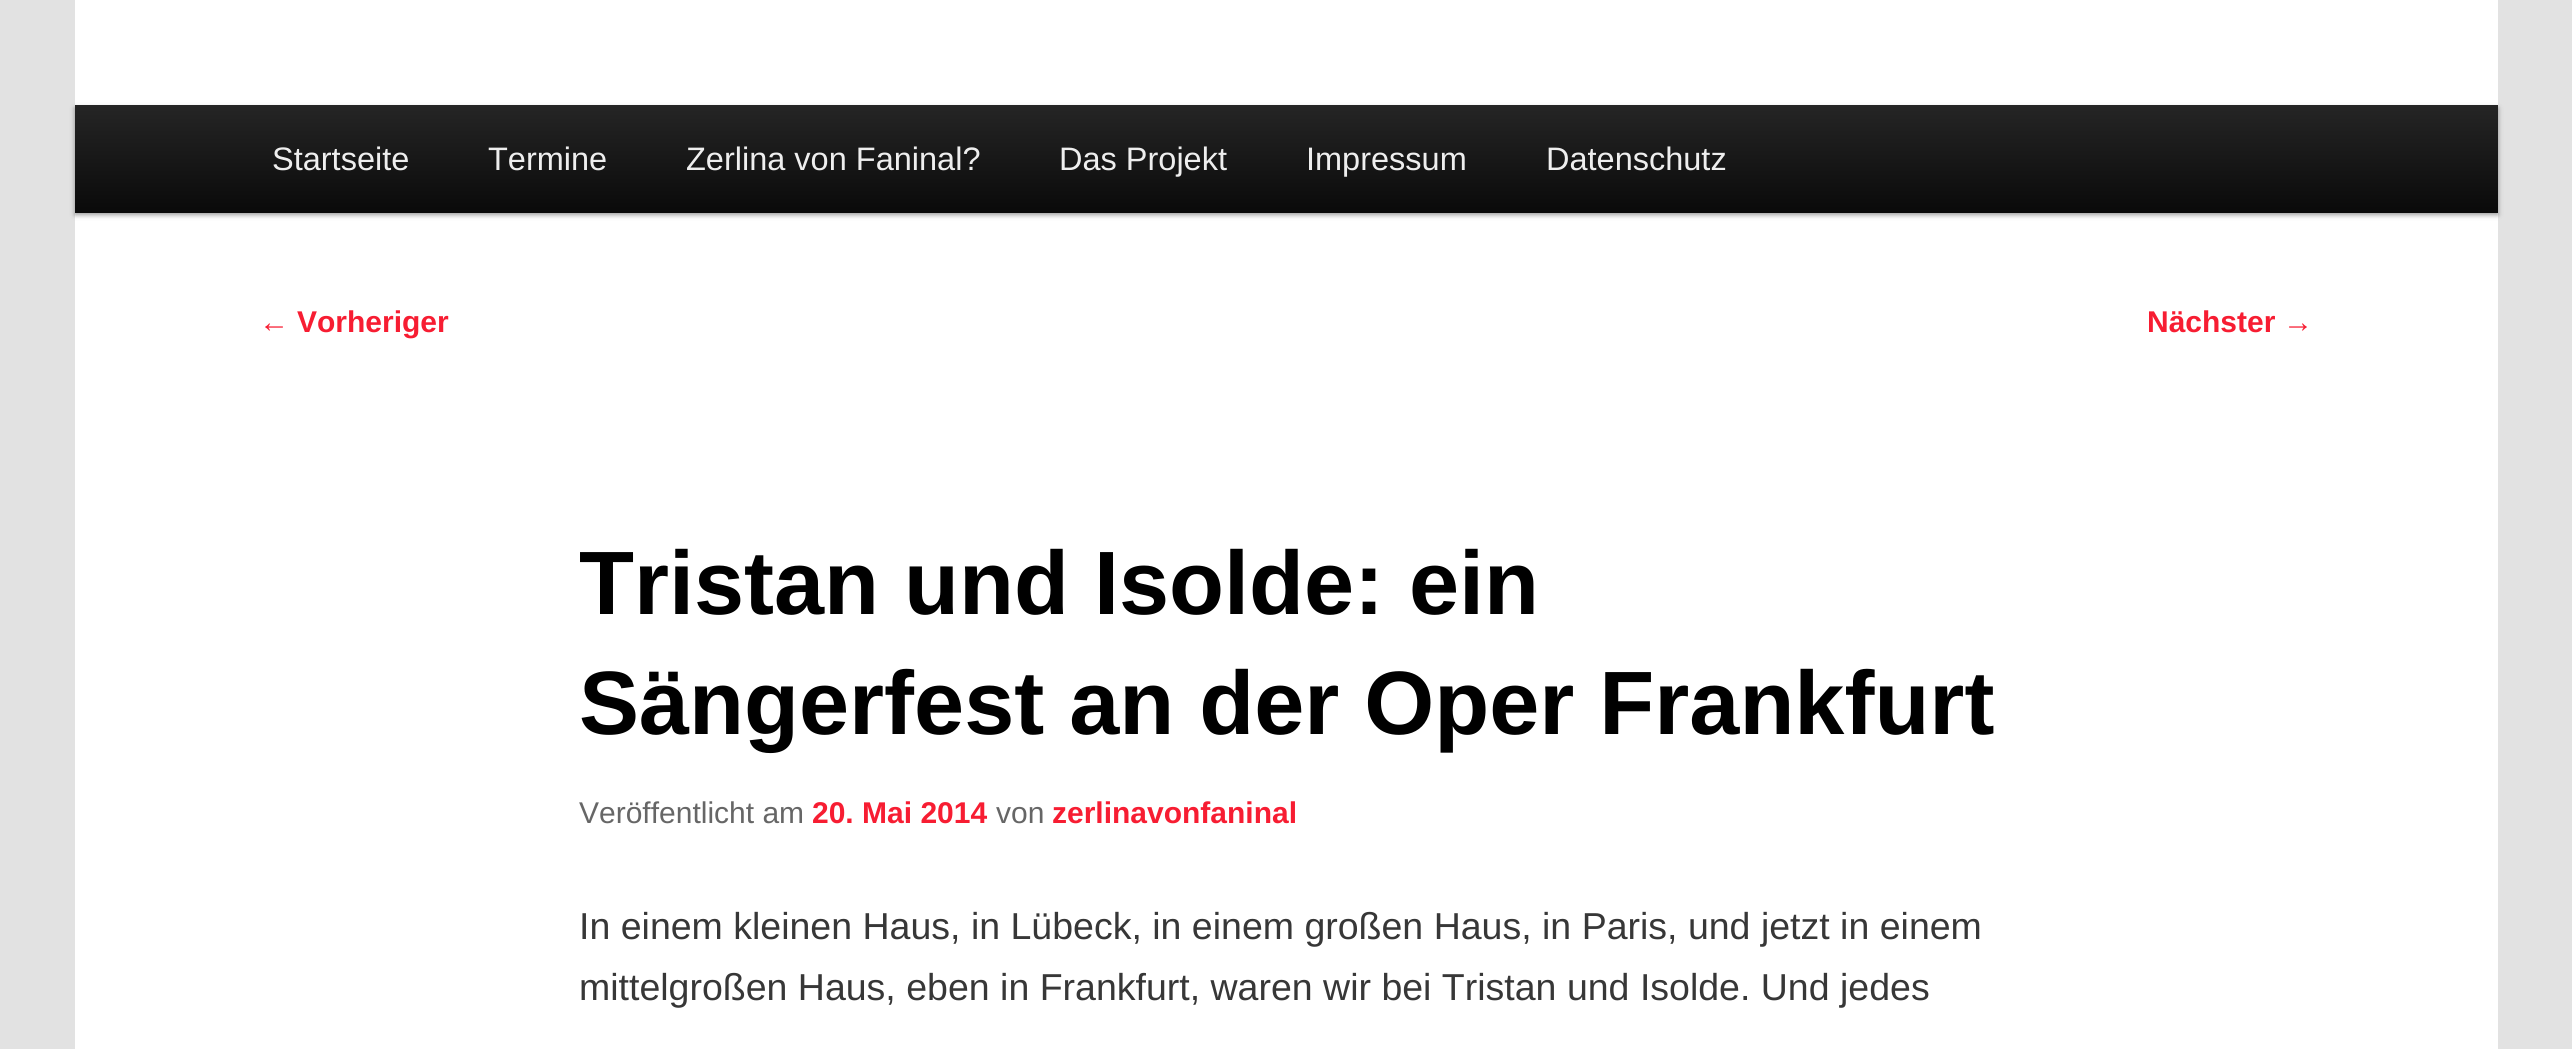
#include <cairo.h>
#include <math.h>
#include <stddef.h>


static void round_rect(cairo_t *cr, double x, double y, double w, double h, double r) {
    cairo_new_sub_path(cr);
    cairo_arc(cr, x + w - r, y + h - r, r, 0, M_PI / 2);
    cairo_arc(cr, x + r, y + h - r, r, M_PI / 2, M_PI);
    cairo_arc(cr, x + r, y + r, r, M_PI, 1.5 * M_PI);
    cairo_arc(cr, x + w - r, y + r, r, 1.5 * M_PI, 2 * M_PI);
    cairo_close_path(cr);
}

static void shadow(cairo_t *cr, double x, double y, double w, double h, double r, double blur, double alpha) {
    cairo_push_group_with_content(cr, CAIRO_CONTENT_ALPHA);
    cairo_set_operator(cr, CAIRO_OPERATOR_SOURCE);
    for (int i = 15; i >= -15 && fmin(w, h) + blur * i / 3 > 0; i -= 2) {
        double e = blur * i / 6;
        cairo_set_source_rgba(cr, 0, 0, 0, alpha * erfc((i - 1) / 8.5) / 2);
        round_rect(cr, x - e, y - e, w + 2 * e, h + 2 * e, fmax(0, fmin(r + e + blur * .6, fmin(w, h) / 2 + e)));
        cairo_fill(cr);
    }
    cairo_pattern_t *soft = cairo_pop_group(cr);
    cairo_mask(cr, soft);
    cairo_pattern_destroy(soft);
}

int main(void) {
    cairo_surface_t *surface = cairo_image_surface_create(CAIRO_FORMAT_RGB24, 2572, 1049);
    cairo_t *cr = cairo_create(surface);
    cairo_font_options_t *options = cairo_font_options_create();
    cairo_font_options_set_hint_metrics(options, CAIRO_HINT_METRICS_OFF);
    cairo_font_options_set_hint_style(options, CAIRO_HINT_STYLE_NONE);
    cairo_set_font_options(cr, options);
    cairo_set_miter_limit(cr, 4);
    cairo_pattern_t *gradient;
    cairo_set_source_rgb(cr, 0.886, 0.886, 0.886);
    cairo_paint(cr);
    cairo_set_source_rgb(cr, 1, 1, 1);
    cairo_rectangle(cr, 75, 0, 2423, 1049);
    cairo_fill(cr);
    cairo_set_source_rgb(cr, 0, 0, 0);
    shadow(cr, 75, 108, 2423, 107, 0, 2.5, 0.4);
    gradient = cairo_pattern_create_linear(1286, 105, 1286, 213);
    cairo_pattern_add_color_stop_rgba(gradient, 0, 0.145, 0.145, 0.145, 1);
    cairo_pattern_add_color_stop_rgba(gradient, 1, 0.039, 0.039, 0.039, 1);
    cairo_set_source(cr, gradient);
    cairo_pattern_destroy(gradient);
    cairo_rectangle(cr, 75, 105, 2423, 108);
    cairo_fill(cr);
    cairo_select_font_face(cr, "Liberation Sans", CAIRO_FONT_SLANT_NORMAL, CAIRO_FONT_WEIGHT_NORMAL);
    cairo_set_font_size(cr, 32.5);
    cairo_set_source_rgb(cr, 0.933, 0.933, 0.933);
    cairo_move_to(cr, 272, 170);
    cairo_show_text(cr, "Startseite");
    cairo_move_to(cr, 488, 170);
    cairo_show_text(cr, "Termine");
    cairo_move_to(cr, 686, 170);
    cairo_show_text(cr, "Zerlina von Faninal?");
    cairo_move_to(cr, 1059, 170);
    cairo_show_text(cr, "Das Projekt");
    cairo_move_to(cr, 1306, 170);
    cairo_show_text(cr, "Impressum");
    cairo_move_to(cr, 1546, 170);
    cairo_show_text(cr, "Datenschutz");
    cairo_set_font_size(cr, 30);
    cairo_set_source_rgb(cr, 0.965, 0.114, 0.196);
    cairo_move_to(cr, 259, 332);
    cairo_show_text(cr, "←");
    cairo_select_font_face(cr, "Liberation Sans", CAIRO_FONT_SLANT_NORMAL, CAIRO_FONT_WEIGHT_BOLD);
    cairo_move_to(cr, 297, 332);
    cairo_show_text(cr, "Vorheriger");
    cairo_move_to(cr, 2147, 332);
    cairo_show_text(cr, "Nächster");
    cairo_select_font_face(cr, "Liberation Sans", CAIRO_FONT_SLANT_NORMAL, CAIRO_FONT_WEIGHT_NORMAL);
    cairo_move_to(cr, 2283, 332);
    cairo_show_text(cr, "→");
    cairo_select_font_face(cr, "Liberation Sans", CAIRO_FONT_SLANT_NORMAL, CAIRO_FONT_WEIGHT_BOLD);
    cairo_set_font_size(cr, 90);
    cairo_set_source_rgb(cr, 0, 0, 0);
    cairo_move_to(cr, 579, 614);
    cairo_show_text(cr, "Tristan und Isolde: ein");
    cairo_move_to(cr, 579, 734);
    cairo_show_text(cr, "Sängerfest an der Oper Frankfurt");
    cairo_select_font_face(cr, "Liberation Sans", CAIRO_FONT_SLANT_NORMAL, CAIRO_FONT_WEIGHT_NORMAL);
    cairo_set_font_size(cr, 30);
    cairo_set_source_rgb(cr, 0.4, 0.4, 0.4);
    cairo_move_to(cr, 579, 823);
    cairo_show_text(cr, "Veröffentlicht am");
    cairo_select_font_face(cr, "Liberation Sans", CAIRO_FONT_SLANT_NORMAL, CAIRO_FONT_WEIGHT_BOLD);
    cairo_set_source_rgb(cr, 0.965, 0.114, 0.196);
    cairo_move_to(cr, 812, 823);
    cairo_show_text(cr, "20. Mai 2014");
    cairo_select_font_face(cr, "Liberation Sans", CAIRO_FONT_SLANT_NORMAL, CAIRO_FONT_WEIGHT_NORMAL);
    cairo_set_source_rgb(cr, 0.4, 0.4, 0.4);
    cairo_move_to(cr, 996, 823);
    cairo_show_text(cr, "von");
    cairo_select_font_face(cr, "Liberation Sans", CAIRO_FONT_SLANT_NORMAL, CAIRO_FONT_WEIGHT_BOLD);
    cairo_set_source_rgb(cr, 0.965, 0.114, 0.196);
    cairo_move_to(cr, 1052, 823);
    cairo_show_text(cr, "zerlinavonfaninal");
    cairo_select_font_face(cr, "Liberation Sans", CAIRO_FONT_SLANT_NORMAL, CAIRO_FONT_WEIGHT_NORMAL);
    cairo_set_font_size(cr, 37.5);
    cairo_set_source_rgb(cr, 0.216, 0.216, 0.216);
    cairo_move_to(cr, 579, 939);
    cairo_show_text(cr, "In einem kleinen Haus, in Lübeck, in einem großen Haus, in Paris, und jetzt in einem");
    cairo_move_to(cr, 579, 1000);
    cairo_show_text(cr, "mittelgroßen Haus, eben in Frankfurt, waren wir bei Tristan und Isolde. Und jedes");
    cairo_surface_write_to_png(surface, "page.png");
    cairo_font_options_destroy(options);
    cairo_destroy(cr);
    cairo_surface_destroy(surface);
    return 0;
}
